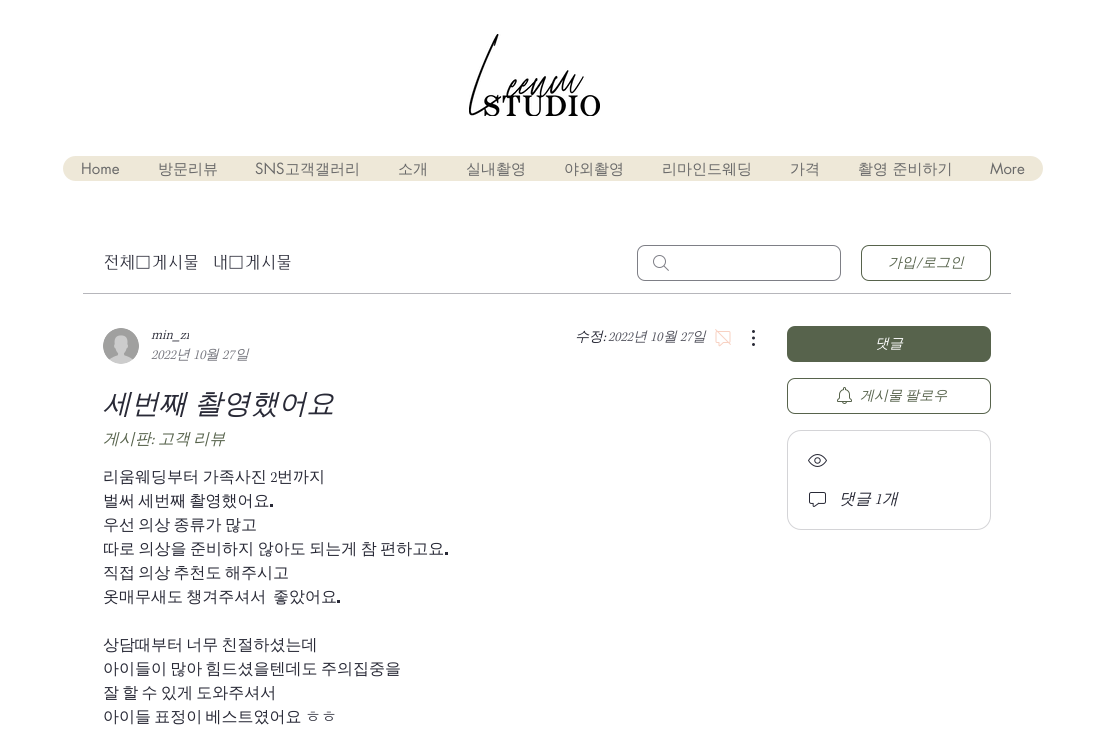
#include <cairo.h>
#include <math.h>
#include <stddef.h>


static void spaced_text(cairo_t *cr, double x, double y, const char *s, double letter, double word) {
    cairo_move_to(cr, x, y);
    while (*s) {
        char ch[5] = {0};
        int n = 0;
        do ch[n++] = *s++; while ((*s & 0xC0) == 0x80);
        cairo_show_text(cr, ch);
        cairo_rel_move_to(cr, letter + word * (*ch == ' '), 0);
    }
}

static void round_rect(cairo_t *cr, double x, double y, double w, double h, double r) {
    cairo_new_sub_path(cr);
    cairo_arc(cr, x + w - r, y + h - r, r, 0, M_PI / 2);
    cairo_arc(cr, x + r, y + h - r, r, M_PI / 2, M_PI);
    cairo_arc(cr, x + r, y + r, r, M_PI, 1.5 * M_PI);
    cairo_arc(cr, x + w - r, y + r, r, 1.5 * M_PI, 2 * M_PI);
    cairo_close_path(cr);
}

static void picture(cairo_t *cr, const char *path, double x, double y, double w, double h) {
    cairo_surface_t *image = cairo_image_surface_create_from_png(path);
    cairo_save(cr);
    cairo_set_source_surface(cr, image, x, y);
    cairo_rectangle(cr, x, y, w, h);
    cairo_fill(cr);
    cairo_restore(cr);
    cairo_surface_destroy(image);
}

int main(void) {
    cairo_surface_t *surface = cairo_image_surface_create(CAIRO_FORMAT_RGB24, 1094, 730);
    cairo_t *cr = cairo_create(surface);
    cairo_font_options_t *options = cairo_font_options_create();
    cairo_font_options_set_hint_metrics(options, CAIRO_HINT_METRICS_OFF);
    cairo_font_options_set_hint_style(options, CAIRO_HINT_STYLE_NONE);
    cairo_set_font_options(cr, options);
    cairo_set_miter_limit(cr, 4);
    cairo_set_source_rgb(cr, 1, 1, 1);
    cairo_paint(cr);
    picture(cr, "img1.png", 469, 34, 131, 82);
    cairo_set_source_rgb(cr, 0.933, 0.91, 0.847);
    round_rect(cr, 63, 156, 980, 25, 12.5);
    cairo_fill(cr);
    cairo_select_font_face(cr, "futura", CAIRO_FONT_SLANT_NORMAL, CAIRO_FONT_WEIGHT_NORMAL);
    cairo_set_font_size(cr, 15);
    cairo_set_source_rgb(cr, 0.412, 0.412, 0.412);
    cairo_move_to(cr, 81, 174);
    cairo_show_text(cr, "Home");
    cairo_select_font_face(cr, "WenQuanYi Zen Hei Medium", CAIRO_FONT_SLANT_NORMAL, CAIRO_FONT_WEIGHT_NORMAL);
    cairo_move_to(cr, 158, 174);
    cairo_show_text(cr, "방문리뷰");
    cairo_select_font_face(cr, "futura", CAIRO_FONT_SLANT_NORMAL, CAIRO_FONT_WEIGHT_NORMAL);
    cairo_move_to(cr, 255, 174);
    cairo_show_text(cr, "SNS");
    cairo_select_font_face(cr, "WenQuanYi Zen Hei Medium", CAIRO_FONT_SLANT_NORMAL, CAIRO_FONT_WEIGHT_NORMAL);
    cairo_move_to(cr, 285, 174);
    cairo_show_text(cr, "고객갤러리");
    cairo_move_to(cr, 398, 174);
    cairo_show_text(cr, "소개");
    cairo_move_to(cr, 466, 174);
    cairo_show_text(cr, "실내촬영");
    cairo_move_to(cr, 564, 174);
    cairo_show_text(cr, "야외촬영");
    cairo_move_to(cr, 662, 174);
    cairo_show_text(cr, "리마인드웨딩");
    cairo_move_to(cr, 790, 174);
    cairo_show_text(cr, "가격");
    cairo_move_to(cr, 858, 174);
    cairo_show_text(cr, "촬영 준비하기");
    cairo_select_font_face(cr, "futura", CAIRO_FONT_SLANT_NORMAL, CAIRO_FONT_WEIGHT_NORMAL);
    cairo_move_to(cr, 990, 174);
    cairo_show_text(cr, "More");
    cairo_set_source_rgb(cr, 0.714, 0.714, 0.733);
    cairo_rectangle(cr, 83, 293, 928, 1);
    cairo_fill(cr);
    cairo_select_font_face(cr, "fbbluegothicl", CAIRO_FONT_SLANT_NORMAL, CAIRO_FONT_WEIGHT_NORMAL);
    cairo_set_font_size(cr, 16);
    cairo_set_source_rgb(cr, 0.157, 0.161, 0.212);
    cairo_move_to(cr, 103, 268);
    cairo_show_text(cr, "전체 게시물");
    cairo_move_to(cr, 212, 268);
    cairo_show_text(cr, "내 게시물");
    picture(cr, "img2.png", 653, 255, 16, 16);
    round_rect(cr, 637.5, 245.5, 203, 35, 7.5);
    cairo_set_source_rgb(cr, 0.494, 0.498, 0.525);
    cairo_set_line_width(cr, 1);
    cairo_stroke(cr);
    round_rect(cr, 861.5, 245.5, 129, 35, 7.5);
    cairo_set_source_rgb(cr, 0.341, 0.388, 0.298);
    cairo_stroke(cr);
    cairo_new_path(cr);
    cairo_move_to(cr, 923.5, 257.5);
    cairo_line_to(cr, 917, 268.5);
    cairo_line_to(cr, 916.5, 268);
    cairo_line_to(cr, 922.5, 257.5);
    cairo_close_path(cr);
    cairo_fill(cr);
    cairo_select_font_face(cr, "WenQuanYi Zen Hei Medium", CAIRO_FONT_SLANT_ITALIC, CAIRO_FONT_WEIGHT_NORMAL);
    cairo_set_font_size(cr, 14);
    cairo_move_to(cr, 888, 267);
    cairo_show_text(cr, "가입");
    cairo_move_to(cr, 922, 267);
    cairo_show_text(cr, "로그인");
    cairo_set_source_rgb(cr, 0.157, 0.161, 0.212);
    cairo_move_to(cr, 575, 341);
    cairo_show_text(cr, "수정");
    picture(cr, "img3.png", 603, 335, 4, 7);
    picture(cr, "img4.png", 608, 332, 26, 10);
    cairo_set_source_rgb(cr, 0.325, 0.329, 0.369);
    cairo_move_to(cr, 633, 341);
    cairo_show_text(cr, "년");
    picture(cr, "img5.png", 651, 332, 13, 10);
    cairo_move_to(cr, 663, 341);
    cairo_show_text(cr, "월");
    picture(cr, "img6.png", 680, 332, 14, 10);
    cairo_move_to(cr, 692, 341);
    cairo_show_text(cr, "일");
    picture(cr, "img7.png", 715, 329, 16, 18);
    picture(cr, "img8.png", 752, 330, 3, 16);
    picture(cr, "img9.png", 103, 328, 36, 36);
    picture(cr, "img10.png", 151, 330, 38, 12);
    picture(cr, "img11.png", 151, 350, 26, 10);
    cairo_set_source_rgb(cr, 0.459, 0.463, 0.494);
    cairo_move_to(cr, 176, 359);
    cairo_show_text(cr, "년");
    picture(cr, "img12.png", 194, 350, 13, 10);
    cairo_move_to(cr, 205, 359);
    cairo_show_text(cr, "월");
    picture(cr, "img13.png", 222, 350, 14, 10);
    cairo_move_to(cr, 235, 359);
    cairo_show_text(cr, "일");
    cairo_set_font_size(cr, 28);
    cairo_set_source_rgb(cr, 0.157, 0.161, 0.212);
    spaced_text(cr, 103, 413, "세번째 촬영했어요", 0, -1);
    picture(cr, "img14.png", 151, 437, 4, 8);
    cairo_set_font_size(cr, 16);
    cairo_set_source_rgb(cr, 0.341, 0.388, 0.298);
    cairo_move_to(cr, 103, 444);
    cairo_show_text(cr, "게시판");
    spaced_text(cr, 158, 444, "고객 리뷰", 0, -1.5);
    cairo_select_font_face(cr, "WenQuanYi Zen Hei Medium", CAIRO_FONT_SLANT_NORMAL, CAIRO_FONT_WEIGHT_NORMAL);
    cairo_set_source_rgb(cr, 0.157, 0.161, 0.212);
    spaced_text(cr, 103, 482, "리움웨딩부터 가족사진", 0, -1);
    picture(cr, "img15.png", 270, 472, 7, 11);
    cairo_move_to(cr, 277, 482);
    cairo_show_text(cr, "번까지");
    spaced_text(cr, 103, 506, "벌써 세번째 촬영했어요", 0, -1.5);
    cairo_rectangle(cr, 270, 504, 3, 3);
    cairo_fill(cr);
    spaced_text(cr, 103, 530, "우선 의상 종류가 많고", 0, -1.5);
    spaced_text(cr, 103, 554, "따로 의상을 준비하지 않아도 되는게 참 편하고요", 0, -1.25);
    cairo_rectangle(cr, 445, 552, 3, 3);
    cairo_fill(cr);
    spaced_text(cr, 103, 578, "직접 의상 추천도 해주시고", 0, -1.5);
    spaced_text(cr, 103, 602, "옷매무새도 챙겨주셔서  좋았어요", 0, -1.5);
    cairo_rectangle(cr, 337, 600, 3, 3);
    cairo_fill(cr);
    spaced_text(cr, 103, 650, "상담때부터 너무 친절하셨는데", 0, -1.5);
    spaced_text(cr, 103, 674, "아이들이 많아 힘드셨을텐데도 주의집중을", 0, -1.5);
    spaced_text(cr, 103, 698, "잘 할 수 있게 도와주셔서", 0, -1.5);
    spaced_text(cr, 103, 722, "아이들 표정이 베스트였어요 ㅎㅎ", 0, -1.5);
    cairo_set_source_rgb(cr, 0.341, 0.388, 0.298);
    round_rect(cr, 787, 326, 204, 36, 8);
    cairo_fill(cr);
    cairo_select_font_face(cr, "WenQuanYi Zen Hei Medium", CAIRO_FONT_SLANT_ITALIC, CAIRO_FONT_WEIGHT_NORMAL);
    cairo_set_font_size(cr, 14);
    cairo_set_source_rgb(cr, 1, 1, 1);
    cairo_move_to(cr, 875, 348);
    cairo_show_text(cr, "댓글");
    round_rect(cr, 787.5, 378.5, 203, 35, 7.5);
    cairo_set_source_rgb(cr, 0.341, 0.388, 0.298);
    cairo_stroke(cr);
    picture(cr, "img16.png", 837, 387, 15, 17);
    spaced_text(cr, 860, 400, "게시물 팔로우", 0, -1);
    round_rect(cr, 787.5, 430.5, 203, 99, 13.5);
    cairo_set_source_rgb(cr, 0.831, 0.831, 0.843);
    cairo_stroke(cr);
    picture(cr, "img17.png", 808, 454, 19, 13);
    picture(cr, "img18.png", 809, 492, 17, 15);
    cairo_set_font_size(cr, 16);
    cairo_set_source_rgb(cr, 0.157, 0.161, 0.212);
    cairo_move_to(cr, 839, 504);
    cairo_show_text(cr, "댓글");
    picture(cr, "img19.png", 875, 494, 7, 11);
    cairo_move_to(cr, 882, 504);
    cairo_show_text(cr, "개");
    cairo_surface_write_to_png(surface, "page.png");
    cairo_font_options_destroy(options);
    cairo_destroy(cr);
    cairo_surface_destroy(surface);
    return 0;
}
